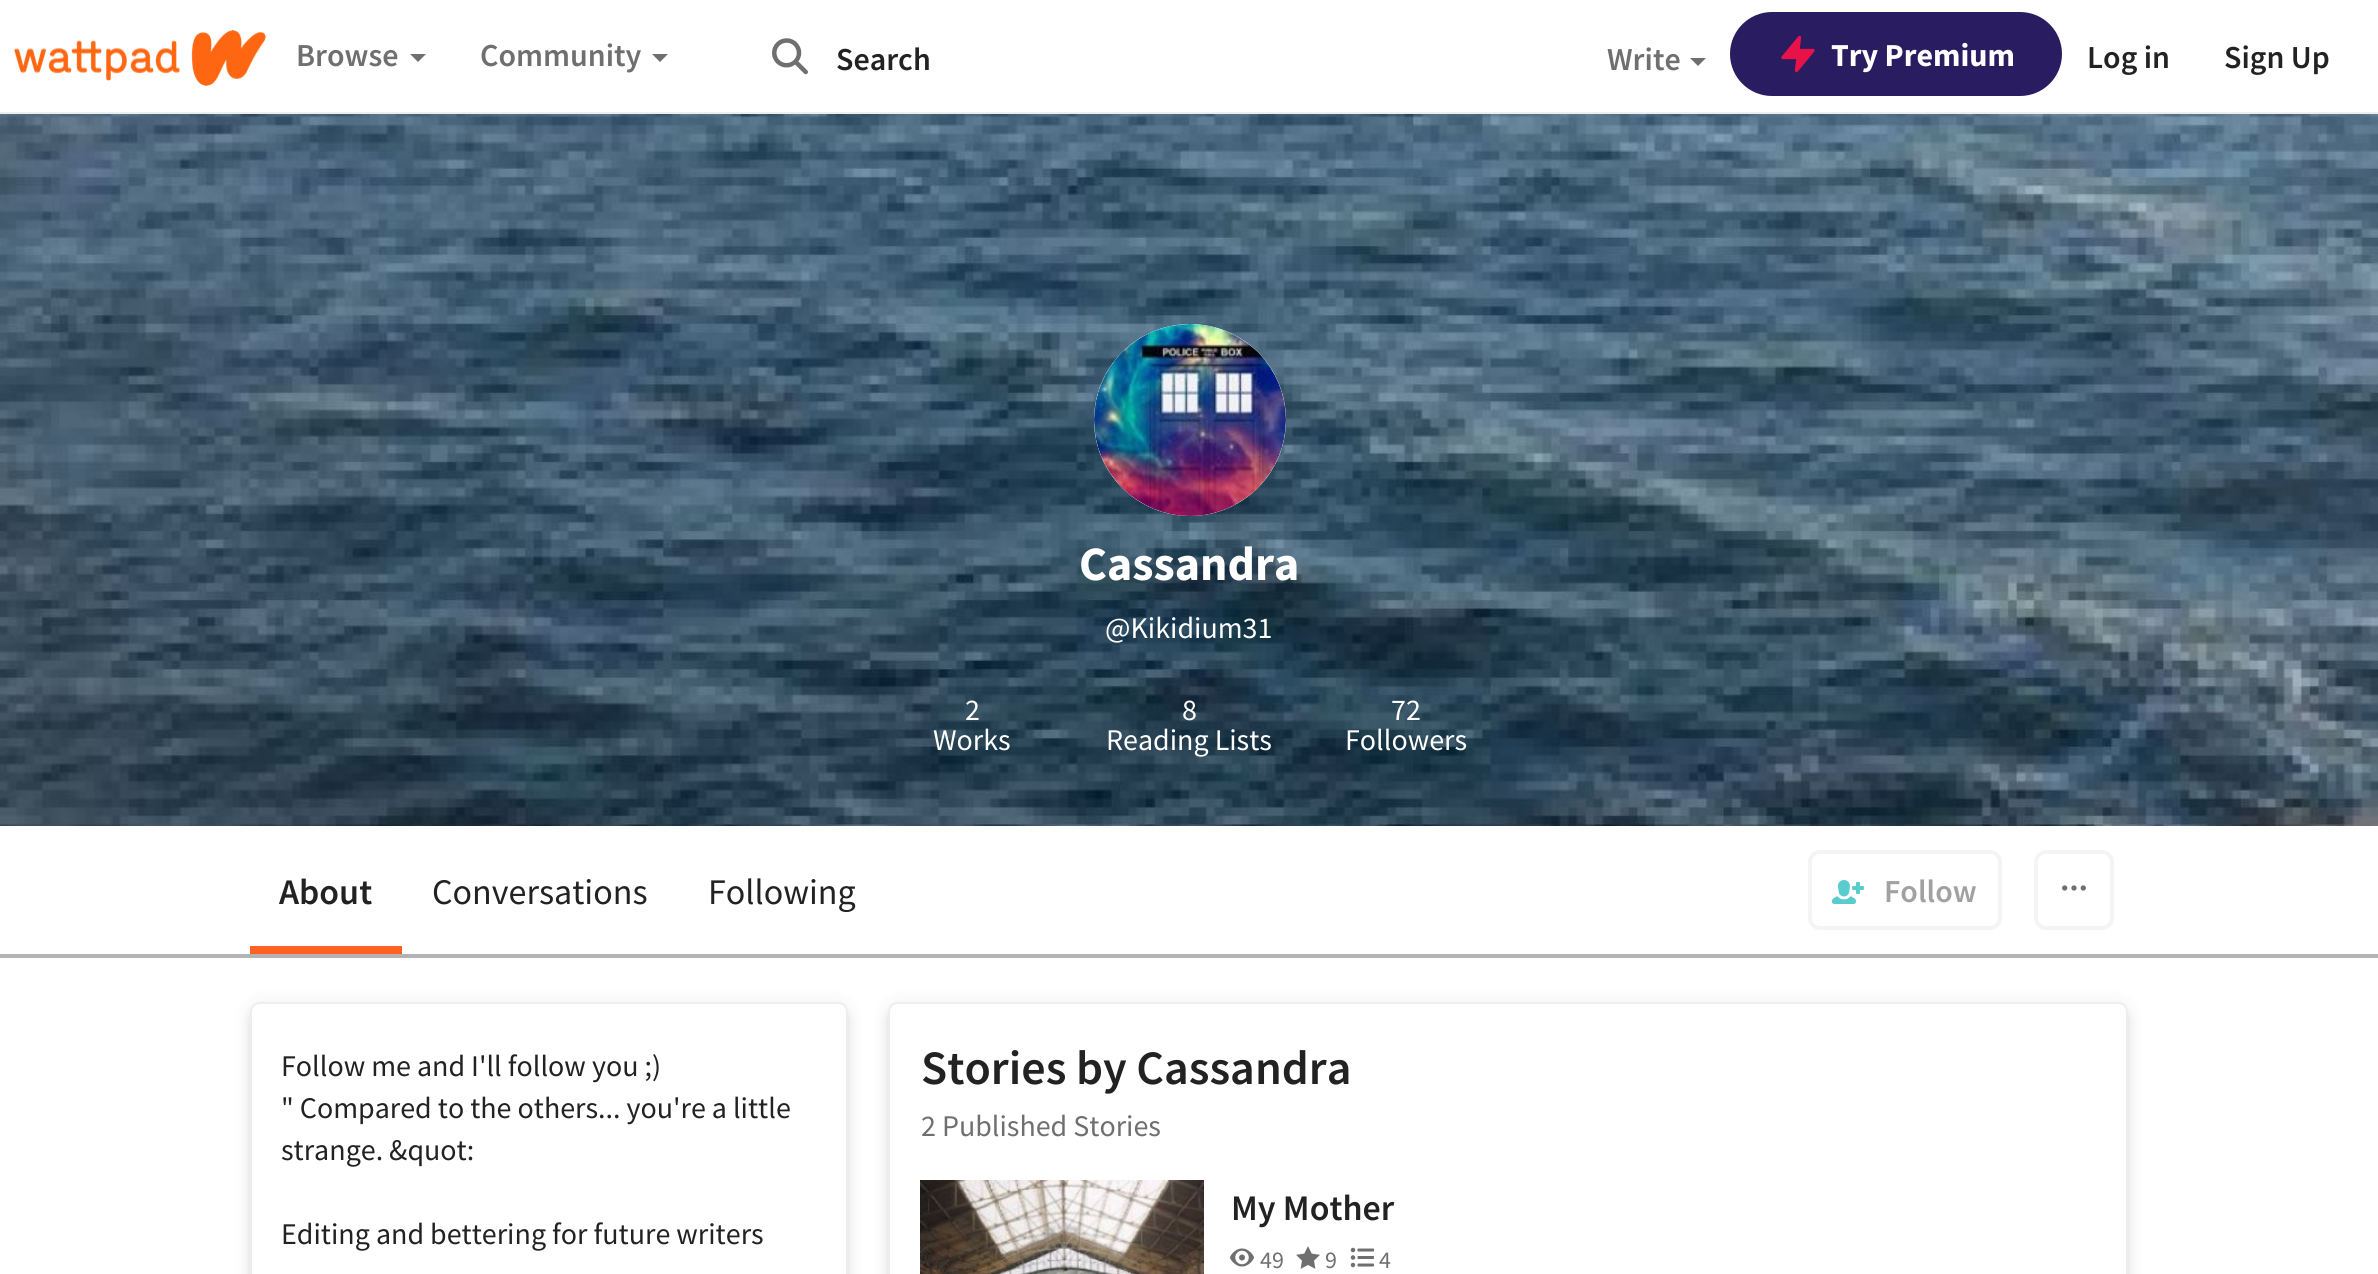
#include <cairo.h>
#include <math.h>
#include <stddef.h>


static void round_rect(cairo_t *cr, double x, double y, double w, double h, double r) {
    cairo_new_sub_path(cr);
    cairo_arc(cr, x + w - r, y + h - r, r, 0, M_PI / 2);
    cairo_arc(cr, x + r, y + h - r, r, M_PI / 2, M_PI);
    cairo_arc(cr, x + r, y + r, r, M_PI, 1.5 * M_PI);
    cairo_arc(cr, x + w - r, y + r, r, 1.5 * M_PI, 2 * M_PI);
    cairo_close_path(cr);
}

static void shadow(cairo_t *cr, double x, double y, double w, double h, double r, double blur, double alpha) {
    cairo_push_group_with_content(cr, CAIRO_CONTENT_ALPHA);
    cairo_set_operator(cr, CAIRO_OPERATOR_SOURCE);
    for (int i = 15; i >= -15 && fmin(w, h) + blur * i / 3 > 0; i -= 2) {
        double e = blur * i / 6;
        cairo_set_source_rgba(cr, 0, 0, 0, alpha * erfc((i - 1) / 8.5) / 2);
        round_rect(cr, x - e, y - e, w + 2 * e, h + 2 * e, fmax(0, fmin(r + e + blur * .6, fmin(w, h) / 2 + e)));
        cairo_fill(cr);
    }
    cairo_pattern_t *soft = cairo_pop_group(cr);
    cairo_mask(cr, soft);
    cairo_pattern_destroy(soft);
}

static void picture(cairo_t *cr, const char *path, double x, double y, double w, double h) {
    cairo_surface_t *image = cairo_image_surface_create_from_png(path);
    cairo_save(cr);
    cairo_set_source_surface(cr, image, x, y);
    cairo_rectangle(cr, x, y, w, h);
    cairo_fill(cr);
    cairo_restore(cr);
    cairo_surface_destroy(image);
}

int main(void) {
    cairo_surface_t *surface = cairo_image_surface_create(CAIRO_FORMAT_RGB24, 2378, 1274);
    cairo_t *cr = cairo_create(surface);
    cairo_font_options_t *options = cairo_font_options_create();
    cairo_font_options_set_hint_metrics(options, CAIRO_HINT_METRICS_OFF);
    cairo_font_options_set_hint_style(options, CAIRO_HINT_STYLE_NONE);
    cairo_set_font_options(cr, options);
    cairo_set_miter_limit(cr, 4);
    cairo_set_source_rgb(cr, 1, 1, 1);
    cairo_paint(cr);
    cairo_set_source_rgb(cr, 0.933, 0.933, 0.933);
    cairo_rectangle(cr, 0, 112, 2378, 2);
    cairo_fill(cr);
    picture(cr, "img1.png", 14, 30, 252, 56);
    cairo_select_font_face(cr, "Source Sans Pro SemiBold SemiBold", CAIRO_FONT_SLANT_NORMAL, CAIRO_FONT_WEIGHT_NORMAL);
    cairo_set_font_size(cr, 32);
    cairo_set_source_rgb(cr, 0.435, 0.435, 0.435);
    cairo_move_to(cr, 296, 66);
    cairo_show_text(cr, "Browse");
    cairo_new_path(cr);
    cairo_move_to(cr, 410, 54);
    cairo_line_to(cr, 426, 54);
    cairo_line_to(cr, 418, 62);
    cairo_close_path(cr);
    cairo_fill(cr);
    cairo_move_to(cr, 480, 66);
    cairo_show_text(cr, "Community");
    cairo_new_path(cr);
    cairo_move_to(cr, 652, 54);
    cairo_line_to(cr, 668, 54);
    cairo_line_to(cr, 660, 62);
    cairo_close_path(cr);
    cairo_fill(cr);
    picture(cr, "img2.png", 772, 38, 36, 37);
    cairo_set_source_rgb(cr, 0.133, 0.133, 0.133);
    cairo_move_to(cr, 836, 70);
    cairo_show_text(cr, "Search");
    cairo_set_source_rgb(cr, 0.435, 0.435, 0.435);
    cairo_move_to(cr, 1607, 70);
    cairo_show_text(cr, "Write");
    cairo_new_path(cr);
    cairo_move_to(cr, 1690, 58);
    cairo_line_to(cr, 1706, 58);
    cairo_line_to(cr, 1698, 66);
    cairo_close_path(cr);
    cairo_fill(cr);
    cairo_set_source_rgb(cr, 0.165, 0.11, 0.376);
    round_rect(cr, 1730, 12, 332, 84, 42);
    cairo_fill(cr);
    cairo_set_source_rgb(cr, 0.91, 0.071, 0.286);
    cairo_new_path(cr);
    cairo_move_to(cr, 1799.5, 37.5);
    cairo_line_to(cr, 1783, 57.5);
    cairo_line_to(cr, 1798, 57.5);
    cairo_line_to(cr, 1796.5, 70.5);
    cairo_line_to(cr, 1813, 50.5);
    cairo_line_to(cr, 1798, 50.5);
    cairo_close_path(cr);
    cairo_fill_preserve(cr);
    cairo_set_line_width(cr, 3.3);
    cairo_set_line_cap(cr, CAIRO_LINE_CAP_ROUND);
    cairo_set_line_join(cr, CAIRO_LINE_JOIN_ROUND);
    cairo_stroke(cr);
    cairo_select_font_face(cr, "Source Sans Pro", CAIRO_FONT_SLANT_NORMAL, CAIRO_FONT_WEIGHT_BOLD);
    cairo_set_source_rgb(cr, 1, 1, 1);
    cairo_move_to(cr, 1831, 66);
    cairo_show_text(cr, "Try Premium");
    cairo_select_font_face(cr, "Source Sans Pro SemiBold SemiBold", CAIRO_FONT_SLANT_NORMAL, CAIRO_FONT_WEIGHT_NORMAL);
    cairo_set_source_rgb(cr, 0.133, 0.133, 0.133);
    cairo_move_to(cr, 2087, 68);
    cairo_show_text(cr, "Log in");
    cairo_move_to(cr, 2224, 68);
    cairo_show_text(cr, "Sign Up");
    picture(cr, "img3.png", 0, 114, 2378, 712);
    cairo_set_source_rgb(cr, 0.933, 0.933, 0.933);
    cairo_arc(cr, 1190, 420, 96, 0, 2 * M_PI);
    cairo_fill(cr);
    picture(cr, "img4.png", 1094, 324, 192, 192);
    cairo_select_font_face(cr, "Source Sans Pro", CAIRO_FONT_SLANT_NORMAL, CAIRO_FONT_WEIGHT_BOLD);
    cairo_set_font_size(cr, 48);
    cairo_set_source_rgb(cr, 1, 1, 1);
    cairo_move_to(cr, 1079, 580);
    cairo_show_text(cr, "Cassandra");
    cairo_select_font_face(cr, "Source Sans Pro", CAIRO_FONT_SLANT_NORMAL, CAIRO_FONT_WEIGHT_NORMAL);
    cairo_set_font_size(cr, 30);
    cairo_move_to(cr, 1105, 638);
    cairo_show_text(cr, "@Kikidium31");
    cairo_move_to(cr, 965, 720);
    cairo_show_text(cr, "2");
    cairo_move_to(cr, 933, 750);
    cairo_show_text(cr, "Works");
    cairo_move_to(cr, 1182, 720);
    cairo_show_text(cr, "8");
    cairo_move_to(cr, 1106, 750);
    cairo_show_text(cr, "Reading Lists");
    cairo_move_to(cr, 1391, 720);
    cairo_show_text(cr, "72");
    cairo_move_to(cr, 1345, 750);
    cairo_show_text(cr, "Followers");
    cairo_set_source_rgb(cr, 0.702, 0.702, 0.702);
    cairo_rectangle(cr, 0, 954, 2378, 4);
    cairo_fill(cr);
    cairo_set_source_rgb(cr, 1, 0.38, 0.133);
    cairo_rectangle(cr, 250, 946, 152, 8);
    cairo_fill(cr);
    cairo_select_font_face(cr, "Source Sans Pro SemiBold SemiBold", CAIRO_FONT_SLANT_NORMAL, CAIRO_FONT_WEIGHT_NORMAL);
    cairo_set_font_size(cr, 36);
    cairo_set_source_rgb(cr, 0.133, 0.133, 0.133);
    cairo_move_to(cr, 279, 904);
    cairo_show_text(cr, "About");
    cairo_select_font_face(cr, "Source Sans Pro", CAIRO_FONT_SLANT_NORMAL, CAIRO_FONT_WEIGHT_NORMAL);
    cairo_move_to(cr, 432, 904);
    cairo_show_text(cr, "Conversations");
    cairo_move_to(cr, 708, 904);
    cairo_show_text(cr, "Following");
    round_rect(cr, 1810, 852, 190, 76, 10);
    cairo_set_source_rgb(cr, 0.957, 0.957, 0.957);
    cairo_set_line_width(cr, 4);
    cairo_set_line_cap(cr, CAIRO_LINE_CAP_BUTT);
    cairo_set_line_join(cr, CAIRO_LINE_JOIN_MITER);
    cairo_stroke(cr);
    picture(cr, "img5.png", 1831, 880, 33, 24);
    cairo_select_font_face(cr, "Source Sans Pro SemiBold SemiBold", CAIRO_FONT_SLANT_NORMAL, CAIRO_FONT_WEIGHT_NORMAL);
    cairo_set_font_size(cr, 32);
    cairo_set_source_rgb(cr, 0.631, 0.631, 0.631);
    cairo_move_to(cr, 1884, 902);
    cairo_show_text(cr, "Follow");
    round_rect(cr, 2036, 852, 76, 76, 10);
    cairo_set_source_rgb(cr, 0.957, 0.957, 0.957);
    cairo_stroke(cr);
    cairo_arc(cr, 2064.7, 888, 1.3, 0, 2 * M_PI);
    cairo_set_source_rgb(cr, 0.435, 0.435, 0.435);
    cairo_set_line_width(cr, 2.7);
    cairo_stroke(cr);
    cairo_arc(cr, 2074, 888, 1.3, 0, 2 * M_PI);
    cairo_stroke(cr);
    cairo_arc(cr, 2083.3, 888, 1.3, 0, 2 * M_PI);
    cairo_stroke(cr);
    cairo_set_source_rgb(cr, 0.133, 0.133, 0.133);
    shadow(cr, 250, 1010, 598, 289, 10, 5, 0.1);
    shadow(cr, 250, 1004, 598, 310, 10, 10, 0.08);
    cairo_set_source_rgb(cr, 1, 1, 1);
    round_rect(cr, 251, 1003, 596, 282, 9);
    cairo_fill_preserve(cr);
    cairo_set_source_rgb(cr, 0.933, 0.933, 0.933);
    cairo_set_line_width(cr, 2);
    cairo_stroke(cr);
    cairo_select_font_face(cr, "Source Sans Pro", CAIRO_FONT_SLANT_NORMAL, CAIRO_FONT_WEIGHT_NORMAL);
    cairo_set_font_size(cr, 30);
    cairo_set_source_rgb(cr, 0.133, 0.133, 0.133);
    cairo_move_to(cr, 281, 1076);
    cairo_show_text(cr, "Follow me and I'll follow you ;)");
    cairo_move_to(cr, 281, 1118);
    cairo_show_text(cr, "\" Compared to the others... you're a little");
    cairo_move_to(cr, 281, 1160);
    cairo_show_text(cr, "strange. &quot:");
    cairo_move_to(cr, 281, 1244);
    cairo_show_text(cr, "Editing and bettering for future writers");
    cairo_set_source_rgb(cr, 0.133, 0.133, 0.133);
    shadow(cr, 888, 1010, 1240, 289, 10, 5, 0.1);
    shadow(cr, 888, 1004, 1240, 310, 10, 10, 0.08);
    cairo_set_source_rgb(cr, 1, 1, 1);
    round_rect(cr, 889, 1003, 1238, 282, 9);
    cairo_fill_preserve(cr);
    cairo_set_source_rgb(cr, 0.933, 0.933, 0.933);
    cairo_stroke(cr);
    cairo_select_font_face(cr, "Source Sans Pro SemiBold SemiBold", CAIRO_FONT_SLANT_NORMAL, CAIRO_FONT_WEIGHT_NORMAL);
    cairo_set_font_size(cr, 48);
    cairo_set_source_rgb(cr, 0.133, 0.133, 0.133);
    cairo_move_to(cr, 921, 1084);
    cairo_show_text(cr, "Stories by Cassandra");
    cairo_select_font_face(cr, "Source Sans Pro", CAIRO_FONT_SLANT_NORMAL, CAIRO_FONT_WEIGHT_NORMAL);
    cairo_set_font_size(cr, 30);
    cairo_set_source_rgb(cr, 0.435, 0.435, 0.435);
    cairo_move_to(cr, 921, 1136);
    cairo_show_text(cr, "2 Published Stories");
    picture(cr, "img6.png", 920, 1180, 284, 94);
    cairo_select_font_face(cr, "Source Sans Pro SemiBold SemiBold", CAIRO_FONT_SLANT_NORMAL, CAIRO_FONT_WEIGHT_NORMAL);
    cairo_set_font_size(cr, 36);
    cairo_set_source_rgb(cr, 0.133, 0.133, 0.133);
    cairo_move_to(cr, 1231, 1220);
    cairo_show_text(cr, "My Mother");
    picture(cr, "img7.png", 1230, 1248, 24, 19);
    cairo_select_font_face(cr, "Source Sans Pro", CAIRO_FONT_SLANT_NORMAL, CAIRO_FONT_WEIGHT_NORMAL);
    cairo_set_font_size(cr, 24);
    cairo_set_source_rgb(cr, 0.435, 0.435, 0.435);
    cairo_move_to(cr, 1260, 1268);
    cairo_show_text(cr, "49");
    picture(cr, "img8.png", 1296, 1246, 24, 23);
    cairo_move_to(cr, 1325, 1268);
    cairo_show_text(cr, "9");
    picture(cr, "img9.png", 1350, 1247, 24, 21);
    cairo_move_to(cr, 1379, 1268);
    cairo_show_text(cr, "4");
    cairo_surface_write_to_png(surface, "page.png");
    cairo_font_options_destroy(options);
    cairo_destroy(cr);
    cairo_surface_destroy(surface);
    return 0;
}
